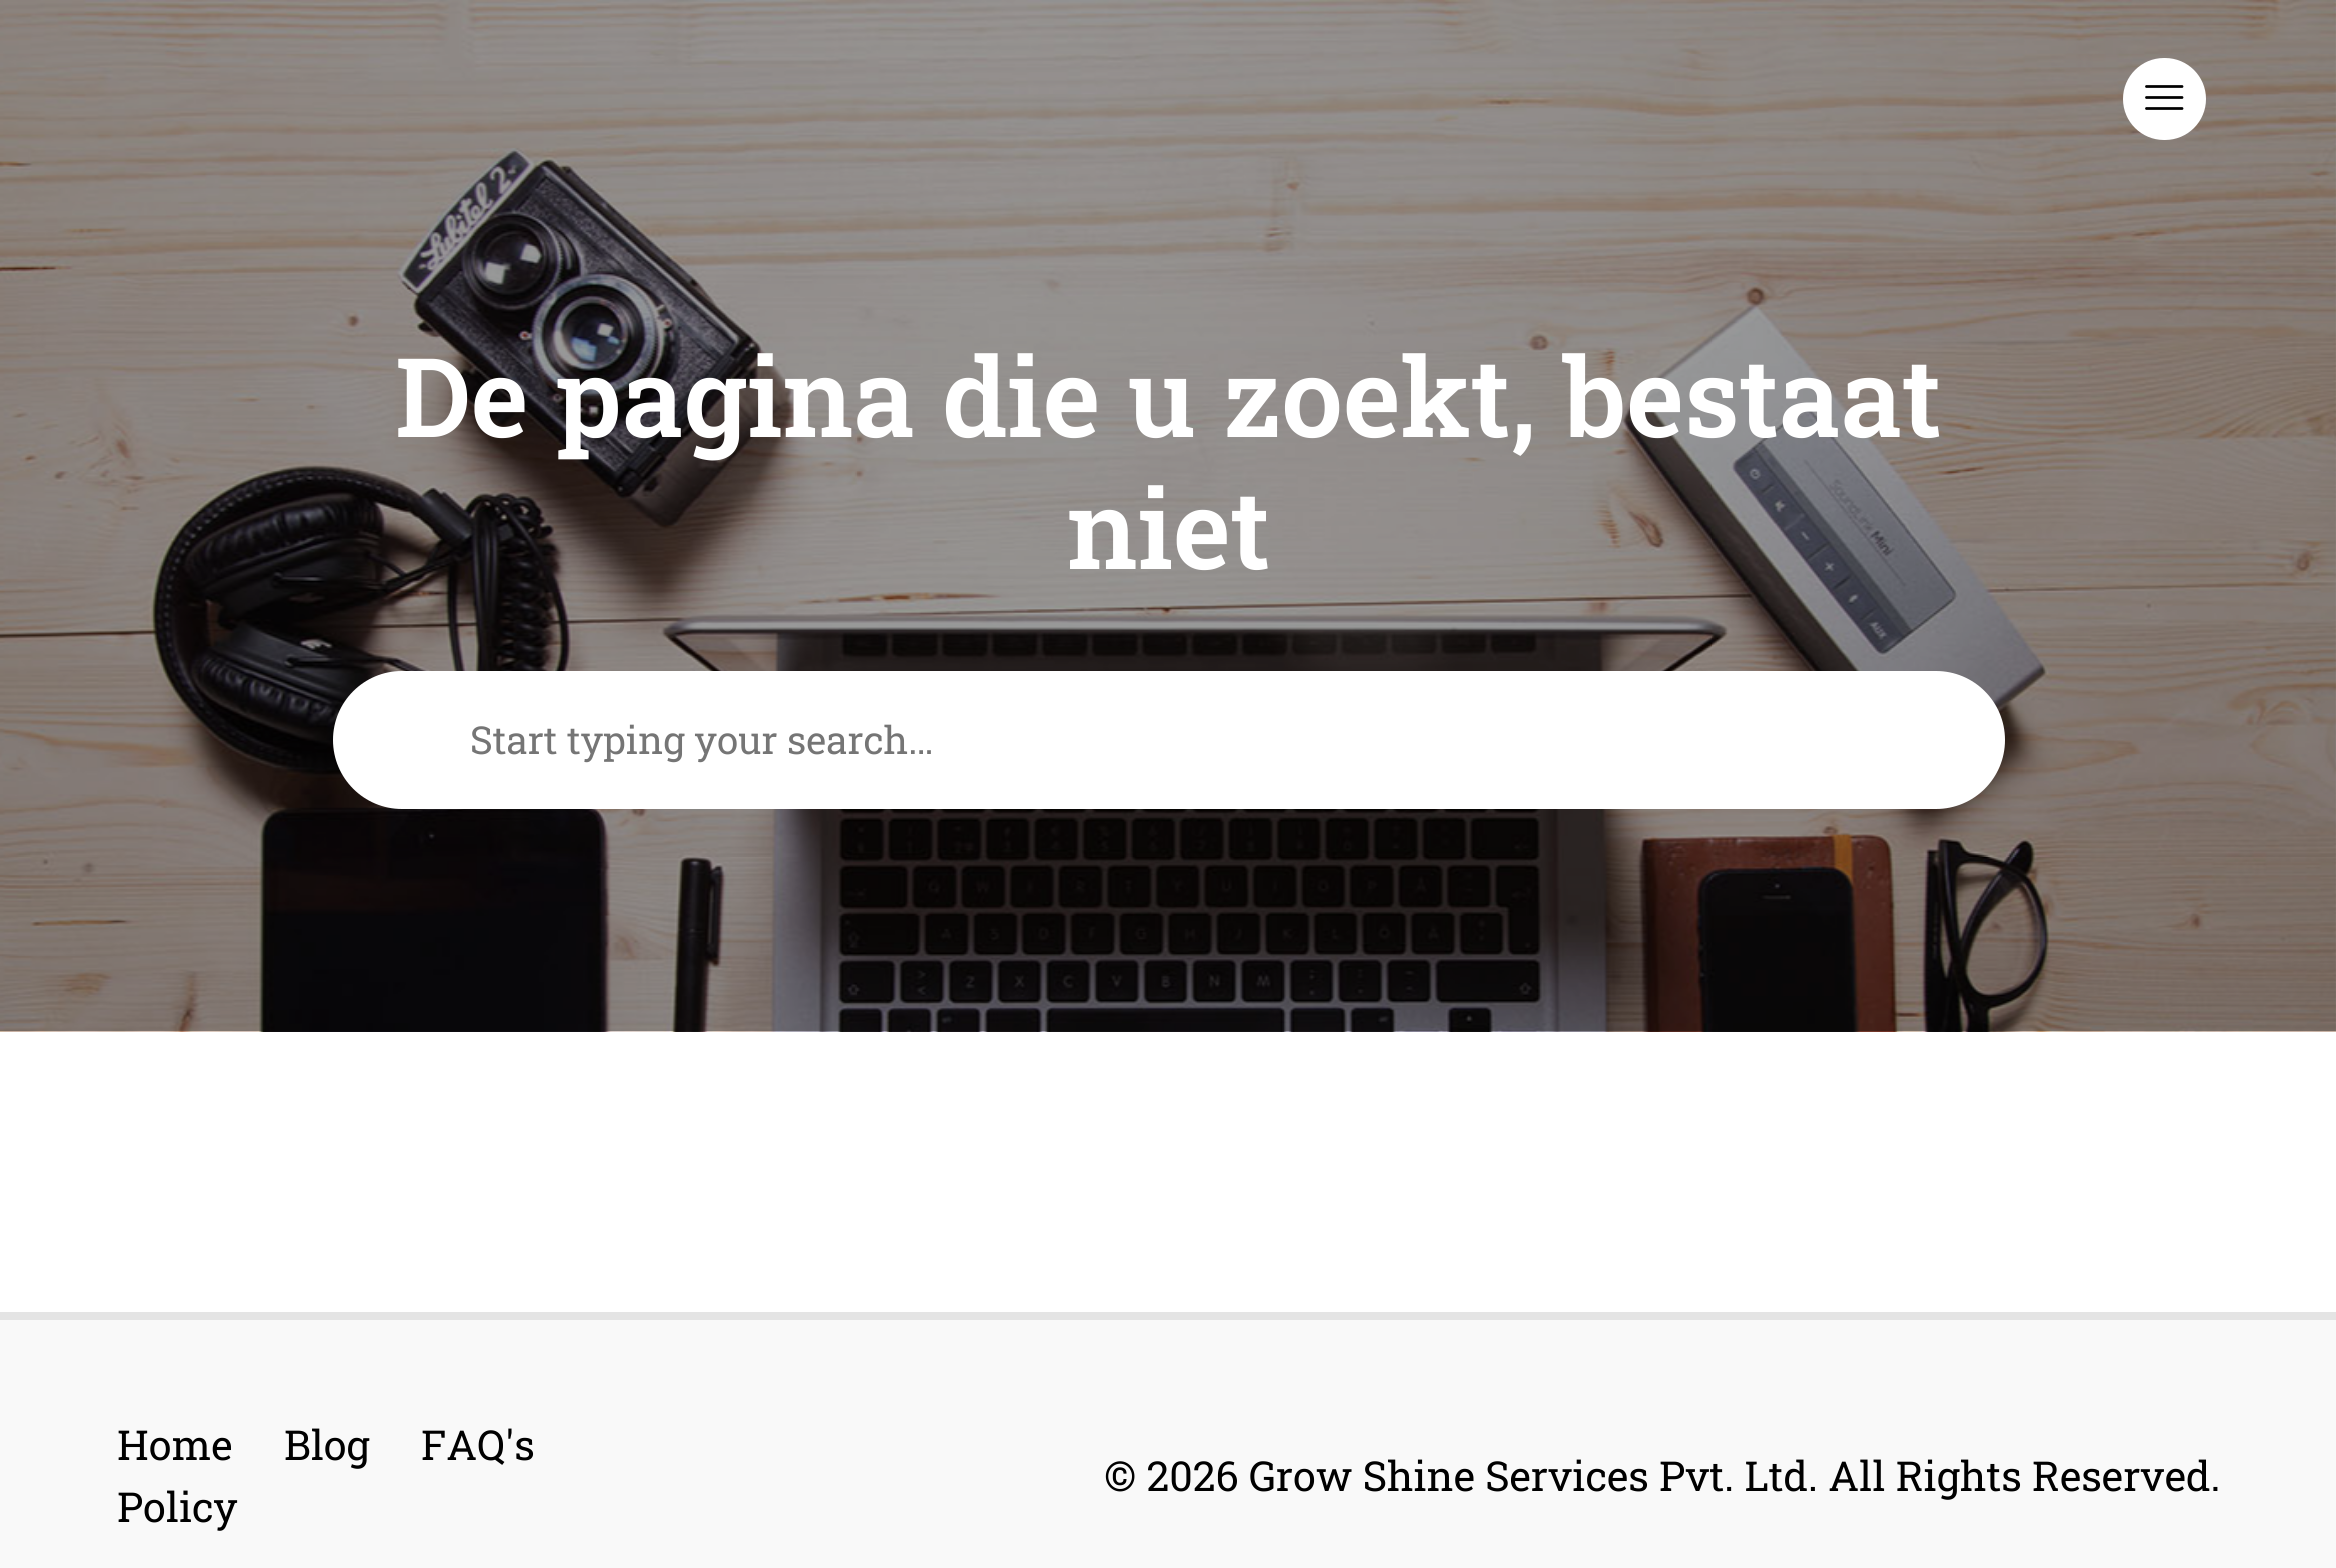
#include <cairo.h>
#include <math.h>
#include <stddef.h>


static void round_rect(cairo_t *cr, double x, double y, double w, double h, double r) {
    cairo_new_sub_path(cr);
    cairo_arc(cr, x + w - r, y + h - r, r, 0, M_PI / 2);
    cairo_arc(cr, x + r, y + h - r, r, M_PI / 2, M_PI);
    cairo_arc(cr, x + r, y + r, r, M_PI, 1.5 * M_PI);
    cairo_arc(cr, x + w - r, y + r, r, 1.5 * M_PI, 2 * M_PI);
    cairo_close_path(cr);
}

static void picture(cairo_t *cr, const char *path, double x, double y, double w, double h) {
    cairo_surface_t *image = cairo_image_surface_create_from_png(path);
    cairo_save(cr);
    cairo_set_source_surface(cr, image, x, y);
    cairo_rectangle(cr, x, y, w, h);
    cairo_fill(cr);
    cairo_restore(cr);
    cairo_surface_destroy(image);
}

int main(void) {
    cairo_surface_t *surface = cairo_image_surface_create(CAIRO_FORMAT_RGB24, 2336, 1568);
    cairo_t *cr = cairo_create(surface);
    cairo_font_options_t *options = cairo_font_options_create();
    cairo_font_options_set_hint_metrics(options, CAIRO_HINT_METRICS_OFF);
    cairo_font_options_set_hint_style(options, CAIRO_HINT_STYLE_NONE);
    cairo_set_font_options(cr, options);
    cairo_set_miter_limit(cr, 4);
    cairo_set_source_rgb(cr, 1, 1, 1);
    cairo_paint(cr);
    picture(cr, "img1.png", 0, 0, 2336, 1032);
    cairo_set_source_rgb(cr, 1, 1, 1);
    round_rect(cr, 2123, 58, 83, 82, 41);
    cairo_fill(cr);
    cairo_new_path(cr);
    cairo_move_to(cr, 2146.5, 86.5);
    cairo_line_to(cr, 2182, 86.5);
    cairo_move_to(cr, 2146.5, 97.5);
    cairo_line_to(cr, 2182, 97.5);
    cairo_move_to(cr, 2146.5, 108.5);
    cairo_line_to(cr, 2182, 108.5);
    cairo_set_source_rgb(cr, 0, 0, 0);
    cairo_set_line_width(cr, 2.8);
    cairo_set_line_cap(cr, CAIRO_LINE_CAP_ROUND);
    cairo_stroke(cr);
    cairo_select_font_face(cr, "Roboto Slab SemiBold", CAIRO_FONT_SLANT_NORMAL, CAIRO_FONT_WEIGHT_NORMAL);
    cairo_set_font_size(cr, 110);
    cairo_set_source_rgb(cr, 1, 1, 1);
    cairo_move_to(cr, 395, 437);
    cairo_show_text(cr, "De pagina die u zoekt, bestaat");
    cairo_move_to(cr, 1067, 569);
    cairo_show_text(cr, "niet");
    round_rect(cr, 333, 671, 1672, 138, 69);
    cairo_fill(cr);
    cairo_select_font_face(cr, "Roboto Slab", CAIRO_FONT_SLANT_NORMAL, CAIRO_FONT_WEIGHT_NORMAL);
    cairo_set_font_size(cr, 38.5);
    cairo_set_source_rgb(cr, 0.459, 0.459, 0.459);
    cairo_move_to(cr, 470, 754);
    cairo_show_text(cr, "Start typing your search…");
    cairo_set_source_rgb(cr, 0.973, 0.973, 0.973);
    cairo_rectangle(cr, 0, 1320, 2336, 248);
    cairo_fill(cr);
    cairo_set_source_rgb(cr, 0.894, 0.894, 0.894);
    cairo_rectangle(cr, 0, 1312, 2336, 8);
    cairo_fill(cr);
    cairo_set_font_size(cr, 41.25);
    cairo_set_source_rgb(cr, 0, 0, 0);
    cairo_move_to(cr, 117, 1460);
    cairo_show_text(cr, "Home");
    cairo_move_to(cr, 284, 1460);
    cairo_show_text(cr, "Blog");
    cairo_move_to(cr, 421, 1460);
    cairo_show_text(cr, "FAQ's");
    cairo_move_to(cr, 117, 1522);
    cairo_show_text(cr, "Policy");
    cairo_move_to(cr, 1104, 1491);
    cairo_show_text(cr, "© 2026 Grow Shine Services Pvt. Ltd. All Rights Reserved.");
    cairo_surface_write_to_png(surface, "page.png");
    cairo_font_options_destroy(options);
    cairo_destroy(cr);
    cairo_surface_destroy(surface);
    return 0;
}
